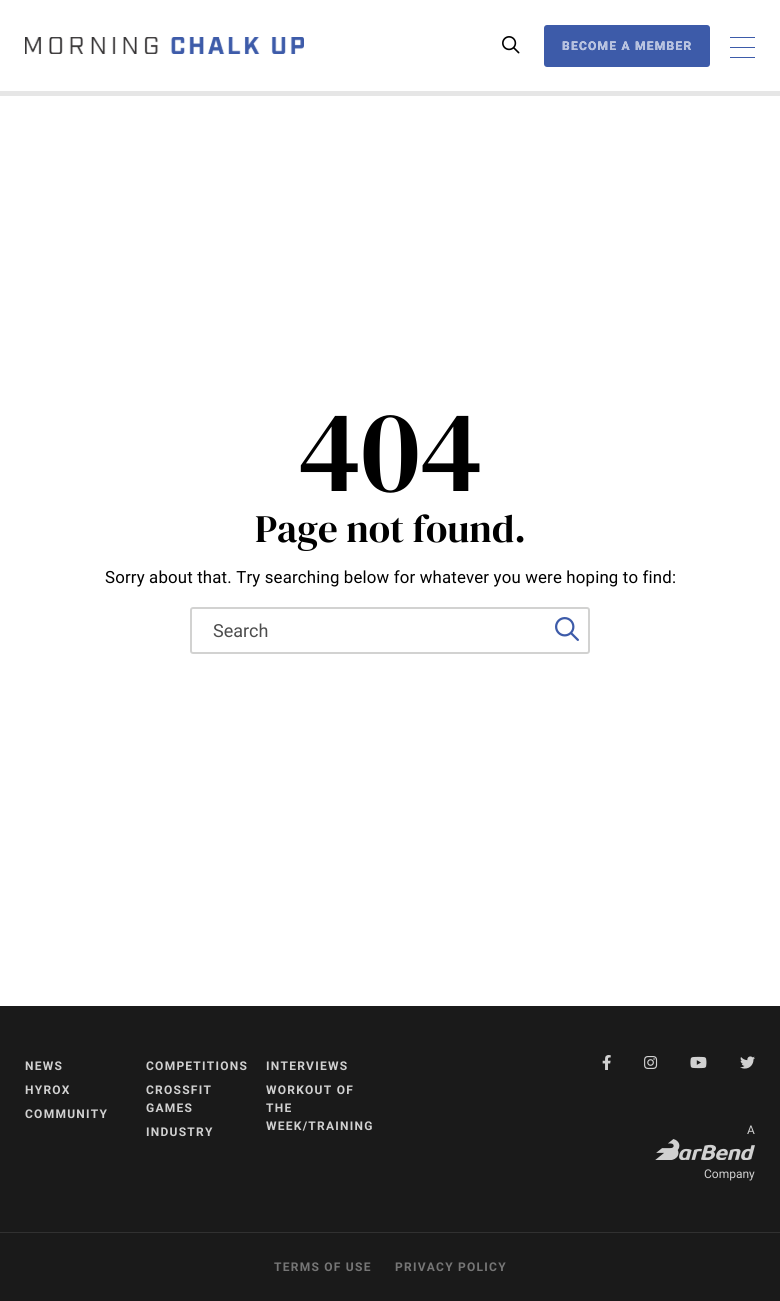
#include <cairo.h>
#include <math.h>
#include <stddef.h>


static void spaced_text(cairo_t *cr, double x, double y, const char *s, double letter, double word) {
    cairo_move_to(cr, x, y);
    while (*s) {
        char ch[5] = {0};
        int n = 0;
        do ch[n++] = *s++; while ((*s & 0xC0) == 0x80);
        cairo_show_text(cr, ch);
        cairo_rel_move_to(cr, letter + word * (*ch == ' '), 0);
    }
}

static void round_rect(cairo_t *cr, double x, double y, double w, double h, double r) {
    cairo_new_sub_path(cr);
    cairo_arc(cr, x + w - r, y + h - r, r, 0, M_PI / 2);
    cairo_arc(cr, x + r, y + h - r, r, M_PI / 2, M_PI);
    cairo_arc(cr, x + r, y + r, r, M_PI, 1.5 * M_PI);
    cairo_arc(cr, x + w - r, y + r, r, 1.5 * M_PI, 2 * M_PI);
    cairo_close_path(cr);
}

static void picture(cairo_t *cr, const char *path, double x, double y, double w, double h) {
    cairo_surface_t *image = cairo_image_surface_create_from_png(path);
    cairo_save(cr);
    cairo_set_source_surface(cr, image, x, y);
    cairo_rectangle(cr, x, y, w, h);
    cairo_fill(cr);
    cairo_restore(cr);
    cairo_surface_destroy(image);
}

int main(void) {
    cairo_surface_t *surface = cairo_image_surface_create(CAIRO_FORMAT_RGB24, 780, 1301);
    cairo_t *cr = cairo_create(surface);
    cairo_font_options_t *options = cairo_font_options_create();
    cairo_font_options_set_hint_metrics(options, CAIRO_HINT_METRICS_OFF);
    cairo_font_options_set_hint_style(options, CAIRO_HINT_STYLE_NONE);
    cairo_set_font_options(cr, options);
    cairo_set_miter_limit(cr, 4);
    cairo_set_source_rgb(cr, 1, 1, 1);
    cairo_paint(cr);
    cairo_rectangle(cr, -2.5, -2.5, 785, 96);
    cairo_set_source_rgb(cr, 0.902, 0.902, 0.902);
    cairo_set_line_width(cr, 5);
    cairo_stroke(cr);
    picture(cr, "img1.png", 25, 37, 279, 17);
    picture(cr, "img2.png", 502, 36, 18, 18);
    cairo_set_source_rgb(cr, 0.239, 0.357, 0.663);
    round_rect(cr, 544, 25, 166, 42, 3);
    cairo_fill(cr);
    cairo_select_font_face(cr, "Roboto", CAIRO_FONT_SLANT_NORMAL, CAIRO_FONT_WEIGHT_BOLD);
    cairo_set_font_size(cr, 12);
    cairo_set_source_rgb(cr, 1, 1, 1);
    spaced_text(cr, 562, 50, "BECOME A MEMBER", 1.25, 0);
    cairo_set_source_rgb(cr, 0.239, 0.357, 0.663);
    cairo_rectangle(cr, 730, 47, 25, 1);
    cairo_fill(cr);
    cairo_rectangle(cr, 730, 37, 25, 1);
    cairo_fill(cr);
    cairo_rectangle(cr, 730, 57, 25, 1);
    cairo_fill(cr);
    cairo_select_font_face(cr, "DM Serif Display", CAIRO_FONT_SLANT_NORMAL, CAIRO_FONT_WEIGHT_NORMAL);
    cairo_set_font_size(cr, 117);
    cairo_set_source_rgb(cr, 0, 0, 0);
    cairo_move_to(cr, 298, 491);
    cairo_show_text(cr, "404");
    cairo_set_font_size(cr, 39);
    cairo_move_to(cr, 255, 542);
    cairo_show_text(cr, "Page not found.");
    cairo_select_font_face(cr, "Roboto", CAIRO_FONT_SLANT_NORMAL, CAIRO_FONT_WEIGHT_NORMAL);
    cairo_set_font_size(cr, 16.8);
    spaced_text(cr, 105, 583, "Sorry about that. Try searching below for whatever you were hoping to find:", 0.17, 0);
    round_rect(cr, 191, 608, 398, 45, 2);
    cairo_set_source_rgb(cr, 0.824, 0.824, 0.82);
    cairo_set_line_width(cr, 2);
    cairo_stroke(cr);
    cairo_set_font_size(cr, 18);
    cairo_set_source_rgb(cr, 0.302, 0.302, 0.302);
    cairo_move_to(cr, 213, 637);
    cairo_show_text(cr, "Search");
    picture(cr, "img3.png", 555, 617, 24, 24);
    cairo_set_source_rgb(cr, 0.102, 0.102, 0.102);
    cairo_rectangle(cr, 0, 1006, 780, 295);
    cairo_fill(cr);
    cairo_select_font_face(cr, "Roboto", CAIRO_FONT_SLANT_NORMAL, CAIRO_FONT_WEIGHT_BOLD);
    cairo_set_font_size(cr, 12);
    cairo_set_source_rgb(cr, 0.82, 0.82, 0.82);
    spaced_text(cr, 25, 1070, "NEWS", 1.25, 0);
    spaced_text(cr, 146, 1070, "COMPETITIONS", 1.25, 0);
    spaced_text(cr, 266, 1070, "INTERVIEWS", 1.25, 0);
    spaced_text(cr, 25, 1094, "HYROX", 1.25, 0);
    spaced_text(cr, 146, 1094, "CROSSFIT", 1.25, 0);
    spaced_text(cr, 146, 1112, "GAMES", 1.25, 0);
    spaced_text(cr, 266, 1094, "WORKOUT OF", 1.25, 0);
    spaced_text(cr, 266, 1112, "THE", 1.25, 0);
    spaced_text(cr, 266, 1130, "WEEK/TRAINING", 1.25, 0);
    spaced_text(cr, 25, 1118, "COMMUNITY", 1.25, 0);
    spaced_text(cr, 146, 1136, "INDUSTRY", 1.25, 0);
    picture(cr, "img4.png", 602, 1055, 9, 15);
    picture(cr, "img5.png", 644, 1056, 14, 13);
    picture(cr, "img6.png", 690, 1056, 17, 13);
    picture(cr, "img7.png", 740, 1056, 15, 13);
    cairo_select_font_face(cr, "Roboto", CAIRO_FONT_SLANT_NORMAL, CAIRO_FONT_WEIGHT_NORMAL);
    cairo_move_to(cr, 747, 1134);
    cairo_show_text(cr, "A");
    picture(cr, "img8.png", 655, 1139, 100, 21);
    cairo_move_to(cr, 704, 1178);
    cairo_show_text(cr, "Company");
    cairo_set_source_rgb(cr, 0.192, 0.192, 0.192);
    cairo_rectangle(cr, 0, 1232, 780, 1);
    cairo_fill(cr);
    cairo_select_font_face(cr, "Roboto", CAIRO_FONT_SLANT_NORMAL, CAIRO_FONT_WEIGHT_BOLD);
    cairo_set_source_rgb(cr, 0.463, 0.463, 0.463);
    spaced_text(cr, 274, 1271, "TERMS OF USE", 1.25, 0);
    spaced_text(cr, 395, 1271, "PRIVACY POLICY", 1.25, 0);
    cairo_set_source_rgb(cr, 0.714, 0.757, 0.875);
    spaced_text(cr, 562, 50, "BECOME A MEMBER", 1.25, 0);
    cairo_surface_write_to_png(surface, "page.png");
    cairo_font_options_destroy(options);
    cairo_destroy(cr);
    cairo_surface_destroy(surface);
    return 0;
}
